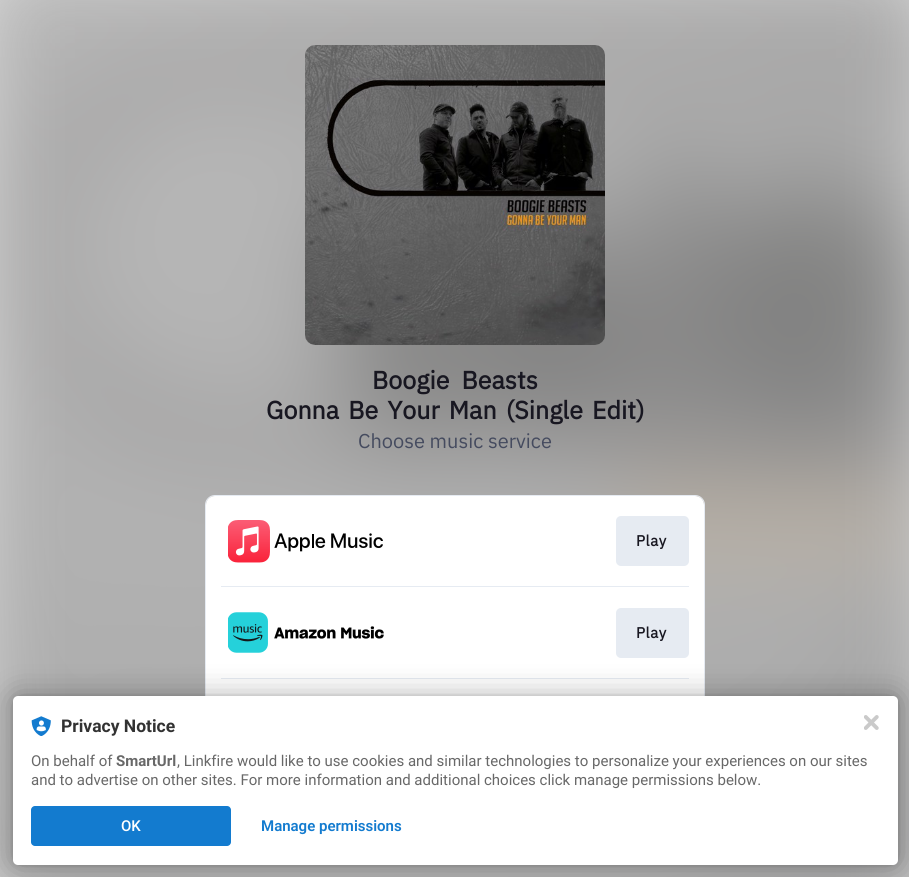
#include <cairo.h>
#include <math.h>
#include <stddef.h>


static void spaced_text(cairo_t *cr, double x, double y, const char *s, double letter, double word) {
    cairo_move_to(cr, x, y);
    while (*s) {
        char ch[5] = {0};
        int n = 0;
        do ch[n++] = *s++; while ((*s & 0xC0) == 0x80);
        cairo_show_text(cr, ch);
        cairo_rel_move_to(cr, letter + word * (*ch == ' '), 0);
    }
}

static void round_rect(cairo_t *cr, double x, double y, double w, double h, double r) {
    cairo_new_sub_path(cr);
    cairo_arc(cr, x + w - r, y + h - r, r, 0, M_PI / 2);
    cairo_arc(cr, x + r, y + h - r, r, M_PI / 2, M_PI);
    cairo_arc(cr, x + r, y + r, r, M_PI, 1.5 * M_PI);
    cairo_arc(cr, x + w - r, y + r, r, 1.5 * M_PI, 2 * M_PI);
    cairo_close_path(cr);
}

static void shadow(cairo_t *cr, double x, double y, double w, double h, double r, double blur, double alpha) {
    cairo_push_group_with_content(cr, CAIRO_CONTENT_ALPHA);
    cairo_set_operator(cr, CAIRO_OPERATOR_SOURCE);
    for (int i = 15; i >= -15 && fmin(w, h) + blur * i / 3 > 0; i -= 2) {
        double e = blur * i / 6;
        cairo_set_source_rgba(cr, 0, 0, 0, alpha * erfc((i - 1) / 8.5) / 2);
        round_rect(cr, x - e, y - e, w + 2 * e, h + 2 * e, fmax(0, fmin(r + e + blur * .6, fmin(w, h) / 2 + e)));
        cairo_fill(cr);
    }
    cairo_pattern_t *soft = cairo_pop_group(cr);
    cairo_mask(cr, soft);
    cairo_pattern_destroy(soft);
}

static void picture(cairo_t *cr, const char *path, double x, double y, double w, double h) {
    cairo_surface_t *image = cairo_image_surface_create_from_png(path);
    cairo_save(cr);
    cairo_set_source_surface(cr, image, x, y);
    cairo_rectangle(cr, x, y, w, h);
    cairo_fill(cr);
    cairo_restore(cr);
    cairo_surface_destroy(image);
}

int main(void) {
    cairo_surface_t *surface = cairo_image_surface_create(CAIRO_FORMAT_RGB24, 909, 877);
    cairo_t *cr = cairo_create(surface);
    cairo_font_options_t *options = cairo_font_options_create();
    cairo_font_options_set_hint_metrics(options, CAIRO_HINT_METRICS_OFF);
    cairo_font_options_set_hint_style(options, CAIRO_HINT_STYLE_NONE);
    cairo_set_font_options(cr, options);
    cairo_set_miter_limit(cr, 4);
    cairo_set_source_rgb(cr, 1, 1, 1);
    cairo_paint(cr);
    picture(cr, "img1.png", 0, 0, 909, 877);
    picture(cr, "img2.png", 305, 45, 300, 300);
    cairo_select_font_face(cr, "IBM Plex Sans", CAIRO_FONT_SLANT_NORMAL, CAIRO_FONT_WEIGHT_BOLD);
    cairo_set_font_size(cr, 25);
    cairo_set_source_rgb(cr, 0.094, 0.09, 0.129);
    spaced_text(cr, 372, 389, "Boogie Beasts", 0, 6);
    spaced_text(cr, 266, 419, "Gonna Be Your Man (Single Edit)", 0, 3.25);
    cairo_select_font_face(cr, "IBM Plex Sans", CAIRO_FONT_SLANT_NORMAL, CAIRO_FONT_WEIGHT_NORMAL);
    cairo_set_font_size(cr, 20);
    cairo_set_source_rgb(cr, 0.271, 0.294, 0.373);
    cairo_move_to(cr, 358, 448);
    cairo_show_text(cr, "Choose music service");
    round_rect(cr, 205.5, 495.5, 499, 365, 9.5);
    cairo_set_source_rgb(cr, 0.902, 0.918, 0.949);
    cairo_set_line_width(cr, 1);
    cairo_stroke(cr);
    cairo_set_source_rgb(cr, 1, 1, 1);
    round_rect(cr, 206, 496, 498, 364, 9);
    cairo_fill(cr);
    picture(cr, "img3.png", 228, 520, 155, 43);
    cairo_set_source_rgb(cr, 0.902, 0.918, 0.949);
    round_rect(cr, 616, 516, 73, 50, 5);
    cairo_fill(cr);
    cairo_select_font_face(cr, "IBM Plex Sans", CAIRO_FONT_SLANT_NORMAL, CAIRO_FONT_WEIGHT_BOLD);
    cairo_set_font_size(cr, 15);
    cairo_set_source_rgb(cr, 0.094, 0.09, 0.129);
    spaced_text(cr, 636, 546, "Play", 0.5, 0);
    cairo_set_source_rgb(cr, 0.902, 0.918, 0.949);
    cairo_rectangle(cr, 221, 586, 468, 1);
    cairo_fill(cr);
    picture(cr, "img4.png", 228, 612, 156, 41);
    round_rect(cr, 616, 608, 73, 50, 5);
    cairo_fill(cr);
    cairo_set_source_rgb(cr, 0.094, 0.09, 0.129);
    spaced_text(cr, 636, 638, "Play", 0.5, 0);
    cairo_set_source_rgb(cr, 0.902, 0.918, 0.949);
    cairo_rectangle(cr, 221, 678, 468, 1);
    cairo_fill(cr);
    cairo_set_source_rgb(cr, 0, 0, 0);
    shadow(cr, 13, 696, 885, 169, 5, 2.5, 0.12);
    shadow(cr, 13, 696, 885, 169, 5, 15, 0.3);
    cairo_set_source_rgb(cr, 1, 1, 1);
    round_rect(cr, 13, 696, 885, 169, 5);
    cairo_fill(cr);
    picture(cr, "img5.png", 31, 716, 20, 20);
    cairo_select_font_face(cr, "Roboto", CAIRO_FONT_SLANT_NORMAL, CAIRO_FONT_WEIGHT_BOLD);
    cairo_set_font_size(cr, 17.5);
    cairo_set_source_rgb(cr, 0.196, 0.196, 0.196);
    cairo_move_to(cr, 61, 732);
    cairo_show_text(cr, "Privacy Notice");
    cairo_select_font_face(cr, "Roboto", CAIRO_FONT_SLANT_NORMAL, CAIRO_FONT_WEIGHT_NORMAL);
    cairo_set_font_size(cr, 15);
    cairo_set_source_rgb(cr, 0.408, 0.408, 0.408);
    cairo_move_to(cr, 31, 766);
    cairo_show_text(cr, "On behalf of");
    cairo_select_font_face(cr, "Roboto", CAIRO_FONT_SLANT_NORMAL, CAIRO_FONT_WEIGHT_BOLD);
    cairo_move_to(cr, 116, 766);
    cairo_show_text(cr, "SmartUrl");
    cairo_select_font_face(cr, "Roboto", CAIRO_FONT_SLANT_NORMAL, CAIRO_FONT_WEIGHT_NORMAL);
    cairo_move_to(cr, 177, 766);
    cairo_show_text(cr, ", Linkfire would like to use cookies and similar technologies to personalize your experiences on our sites");
    cairo_move_to(cr, 31, 785);
    cairo_show_text(cr, "and to advertise on other sites. For more information and additional choices click manage permissions below.");
    cairo_set_source_rgb(cr, 0.075, 0.482, 0.812);
    round_rect(cr, 31, 806, 200, 40, 4);
    cairo_fill(cr);
    cairo_select_font_face(cr, "Roboto Medium", CAIRO_FONT_SLANT_NORMAL, CAIRO_FONT_WEIGHT_NORMAL);
    cairo_set_source_rgb(cr, 1, 1, 1);
    cairo_move_to(cr, 121, 831);
    cairo_show_text(cr, "OK");
    cairo_select_font_face(cr, "Roboto SemiBold", CAIRO_FONT_SLANT_NORMAL, CAIRO_FONT_WEIGHT_NORMAL);
    cairo_set_source_rgb(cr, 0.075, 0.482, 0.812);
    cairo_move_to(cr, 261, 831);
    cairo_show_text(cr, "Manage permissions");
    picture(cr, "img6.png", 864, 715, 15, 15);
    cairo_surface_write_to_png(surface, "page.png");
    cairo_font_options_destroy(options);
    cairo_destroy(cr);
    cairo_surface_destroy(surface);
    return 0;
}
